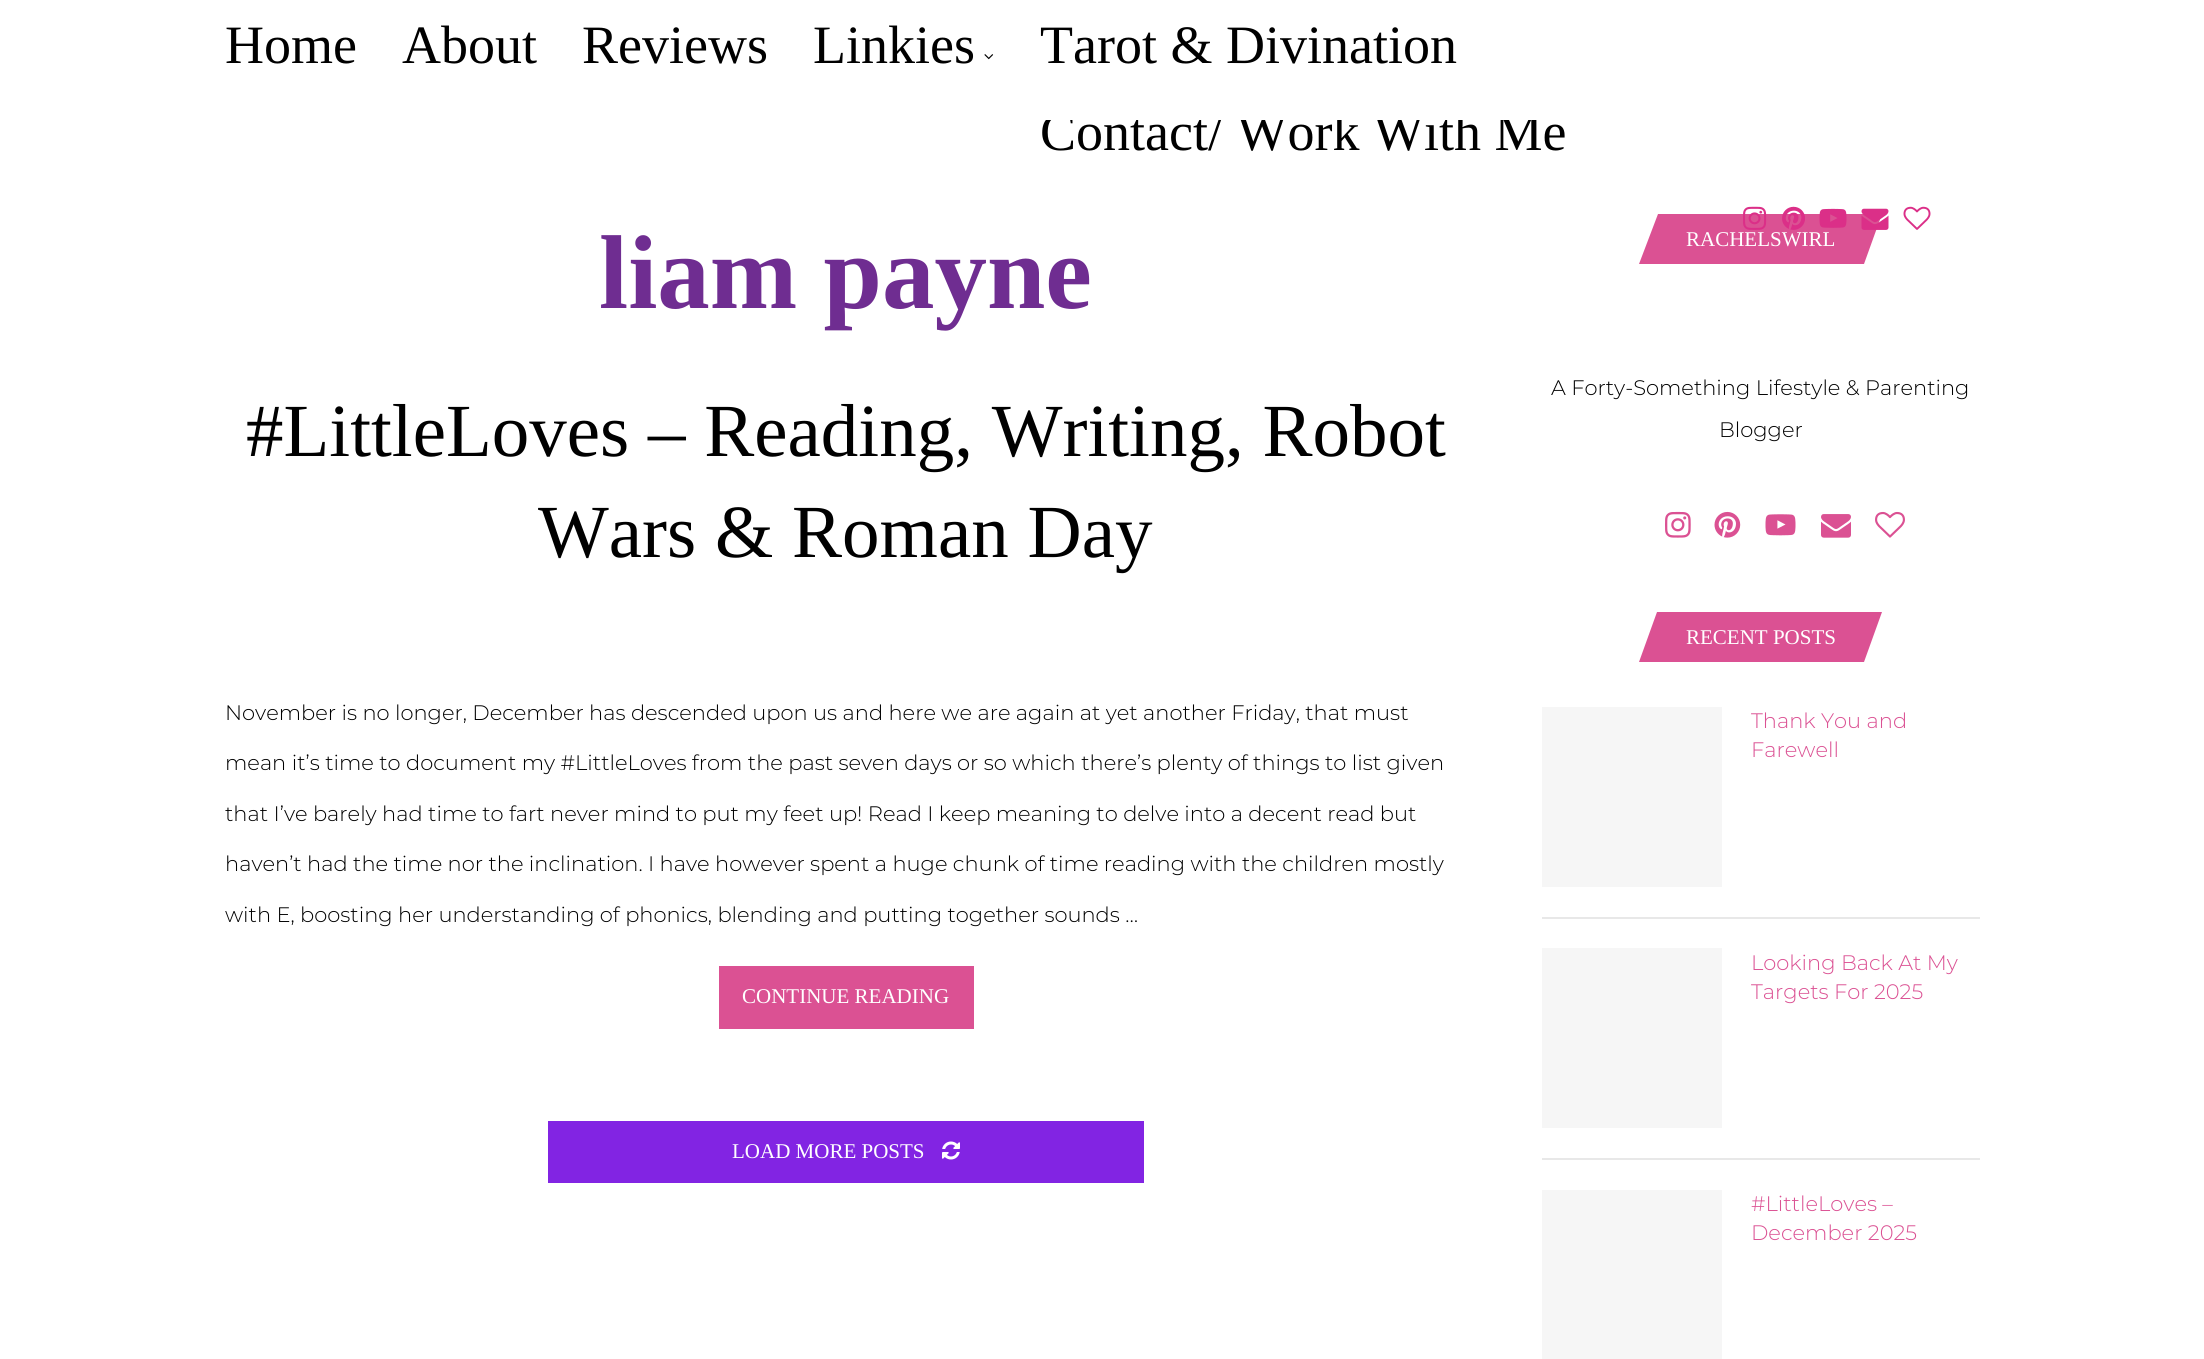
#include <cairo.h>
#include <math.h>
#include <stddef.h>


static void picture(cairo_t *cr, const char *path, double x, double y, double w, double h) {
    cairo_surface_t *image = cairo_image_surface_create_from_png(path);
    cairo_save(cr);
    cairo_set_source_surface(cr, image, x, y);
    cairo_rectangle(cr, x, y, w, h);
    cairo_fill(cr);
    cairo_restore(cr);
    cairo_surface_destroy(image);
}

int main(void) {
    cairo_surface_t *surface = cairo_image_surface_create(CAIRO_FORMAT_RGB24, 2204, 1359);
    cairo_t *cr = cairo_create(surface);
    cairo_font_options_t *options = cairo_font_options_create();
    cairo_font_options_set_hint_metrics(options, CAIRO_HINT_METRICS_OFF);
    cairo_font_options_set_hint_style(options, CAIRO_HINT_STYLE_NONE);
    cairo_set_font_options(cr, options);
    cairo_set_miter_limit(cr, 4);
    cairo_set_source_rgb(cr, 1, 1, 1);
    cairo_paint(cr);
    cairo_select_font_face(cr, "Liberation Serif", CAIRO_FONT_SLANT_NORMAL, CAIRO_FONT_WEIGHT_NORMAL);
    cairo_set_font_size(cr, 54);
    cairo_set_source_rgb(cr, 0, 0, 0);
    cairo_move_to(cr, 225, 63);
    cairo_show_text(cr, "Home");
    cairo_move_to(cr, 402, 63);
    cairo_show_text(cr, "About");
    cairo_move_to(cr, 582, 63);
    cairo_show_text(cr, "Reviews");
    cairo_move_to(cr, 813, 63);
    cairo_show_text(cr, "Linkies");
    picture(cr, "img1.png", 984, 54, 10, 6);
    cairo_move_to(cr, 1040, 63);
    cairo_show_text(cr, "Tarot & Divination");
    cairo_move_to(cr, 1040, 150);
    cairo_show_text(cr, "Contact/ Work With Me");
    cairo_set_source_rgb(cr, 0.859, 0.318, 0.576);
    cairo_new_path(cr);
    cairo_move_to(cr, 1658, 214);
    cairo_line_to(cr, 1882, 214);
    cairo_line_to(cr, 1864, 264);
    cairo_line_to(cr, 1639, 264);
    cairo_close_path(cr);
    cairo_fill(cr);
    picture(cr, "img2.png", 1743, 206, 24, 24);
    picture(cr, "img3.png", 1782, 206, 23, 24);
    picture(cr, "img4.png", 1819, 208, 28, 20);
    picture(cr, "img5.png", 1861, 208, 28, 22);
    picture(cr, "img6.png", 1903, 206, 28, 24);
    cairo_set_source_rgb(cr, 1, 1, 1);
    cairo_rectangle(cr, 1045, 112, 496, 8);
    cairo_fill(cr);
    cairo_select_font_face(cr, "Liberation Serif", CAIRO_FONT_SLANT_NORMAL, CAIRO_FONT_WEIGHT_BOLD);
    cairo_set_font_size(cr, 105);
    cairo_set_source_rgb(cr, 0.435, 0.176, 0.569);
    cairo_move_to(cr, 599, 308);
    cairo_show_text(cr, "liam payne");
    cairo_select_font_face(cr, "Liberation Serif", CAIRO_FONT_SLANT_NORMAL, CAIRO_FONT_WEIGHT_NORMAL);
    cairo_set_font_size(cr, 75);
    cairo_set_source_rgb(cr, 0, 0, 0);
    cairo_move_to(cr, 246, 456);
    cairo_show_text(cr, "#LittleLoves – Reading, Writing, Robot");
    cairo_move_to(cr, 538, 557);
    cairo_show_text(cr, "Wars & Roman Day");
    cairo_select_font_face(cr, "Montserrat Thin", CAIRO_FONT_SLANT_NORMAL, CAIRO_FONT_WEIGHT_NORMAL);
    cairo_set_font_size(cr, 21);
    cairo_move_to(cr, 225, 720);
    cairo_show_text(cr, "November is no longer, December has descended upon us and here we are again at yet another Friday, that must");
    cairo_move_to(cr, 225, 770);
    cairo_show_text(cr, "mean it’s time to document my #LittleLoves from the past seven days or so which there’s plenty of things to list given");
    cairo_move_to(cr, 225, 821);
    cairo_show_text(cr, "that I’ve barely had time to fart never mind to put my feet up! Read I keep meaning to delve into a decent read but");
    cairo_move_to(cr, 225, 871);
    cairo_show_text(cr, "haven’t had the time nor the inclination. I have however spent a huge chunk of time reading with the children mostly");
    cairo_move_to(cr, 225, 922);
    cairo_show_text(cr, "with E, boosting her understanding of phonics, blending and putting together sounds …");
    cairo_set_source_rgb(cr, 0.859, 0.318, 0.576);
    cairo_rectangle(cr, 719, 966, 255, 63);
    cairo_fill(cr);
    cairo_select_font_face(cr, "Liberation Serif", CAIRO_FONT_SLANT_NORMAL, CAIRO_FONT_WEIGHT_NORMAL);
    cairo_set_source_rgb(cr, 1, 1, 1);
    cairo_move_to(cr, 742, 1003);
    cairo_show_text(cr, "CONTINUE READING");
    cairo_set_source_rgb(cr, 0.51, 0.141, 0.89);
    cairo_rectangle(cr, 548, 1121, 596, 62);
    cairo_fill(cr);
    cairo_set_source_rgb(cr, 1, 1, 1);
    cairo_move_to(cr, 732, 1158);
    cairo_show_text(cr, "LOAD MORE POSTS");
    picture(cr, "img7.png", 942, 1141, 18, 19);
    cairo_move_to(cr, 1686, 246);
    cairo_show_text(cr, "RACHELSWIRL");
    cairo_select_font_face(cr, "Montserrat Thin", CAIRO_FONT_SLANT_NORMAL, CAIRO_FONT_WEIGHT_NORMAL);
    cairo_set_source_rgb(cr, 0, 0, 0);
    cairo_move_to(cr, 1551, 395);
    cairo_show_text(cr, "A Forty-Something Lifestyle & Parenting");
    cairo_move_to(cr, 1719, 437);
    cairo_show_text(cr, "Blogger");
    picture(cr, "img8.png", 1665, 511, 26, 27);
    picture(cr, "img9.png", 1714, 511, 27, 27);
    picture(cr, "img10.png", 1765, 514, 31, 22);
    picture(cr, "img11.png", 1821, 514, 30, 24);
    picture(cr, "img12.png", 1875, 511, 30, 27);
    cairo_set_source_rgb(cr, 0.859, 0.318, 0.576);
    cairo_new_path(cr);
    cairo_move_to(cr, 1657, 612);
    cairo_line_to(cr, 1882, 612);
    cairo_line_to(cr, 1864, 662);
    cairo_line_to(cr, 1639, 662);
    cairo_close_path(cr);
    cairo_fill(cr);
    cairo_select_font_face(cr, "Liberation Serif", CAIRO_FONT_SLANT_NORMAL, CAIRO_FONT_WEIGHT_NORMAL);
    cairo_set_source_rgb(cr, 1, 1, 1);
    cairo_move_to(cr, 1686, 644);
    cairo_show_text(cr, "RECENT POSTS");
    cairo_set_source_rgb(cr, 0.91, 0.91, 0.91);
    cairo_rectangle(cr, 1542, 917, 438, 2);
    cairo_fill(cr);
    cairo_set_source_rgb(cr, 0.961, 0.961, 0.961);
    cairo_rectangle(cr, 1542, 707, 180, 180);
    cairo_fill(cr);
    cairo_select_font_face(cr, "Montserrat Thin", CAIRO_FONT_SLANT_NORMAL, CAIRO_FONT_WEIGHT_NORMAL);
    cairo_set_source_rgb(cr, 0.859, 0.318, 0.576);
    cairo_move_to(cr, 1751, 728);
    cairo_show_text(cr, "Thank You and");
    cairo_move_to(cr, 1751, 757);
    cairo_show_text(cr, "Farewell");
    cairo_set_source_rgb(cr, 0.91, 0.91, 0.91);
    cairo_rectangle(cr, 1542, 1158, 438, 2);
    cairo_fill(cr);
    cairo_set_source_rgb(cr, 0.961, 0.961, 0.961);
    cairo_rectangle(cr, 1542, 948, 180, 180);
    cairo_fill(cr);
    cairo_set_source_rgb(cr, 0.859, 0.318, 0.576);
    cairo_move_to(cr, 1751, 970);
    cairo_show_text(cr, "Looking Back At My");
    cairo_move_to(cr, 1751, 999);
    cairo_show_text(cr, "Targets For 2025");
    cairo_set_source_rgb(cr, 0.961, 0.961, 0.961);
    cairo_rectangle(cr, 1542, 1190, 180, 169);
    cairo_fill(cr);
    cairo_set_source_rgb(cr, 0.859, 0.318, 0.576);
    cairo_move_to(cr, 1751, 1211);
    cairo_show_text(cr, "#LittleLoves –");
    cairo_move_to(cr, 1751, 1240);
    cairo_show_text(cr, "December 2025");
    cairo_surface_write_to_png(surface, "page.png");
    cairo_font_options_destroy(options);
    cairo_destroy(cr);
    cairo_surface_destroy(surface);
    return 0;
}
